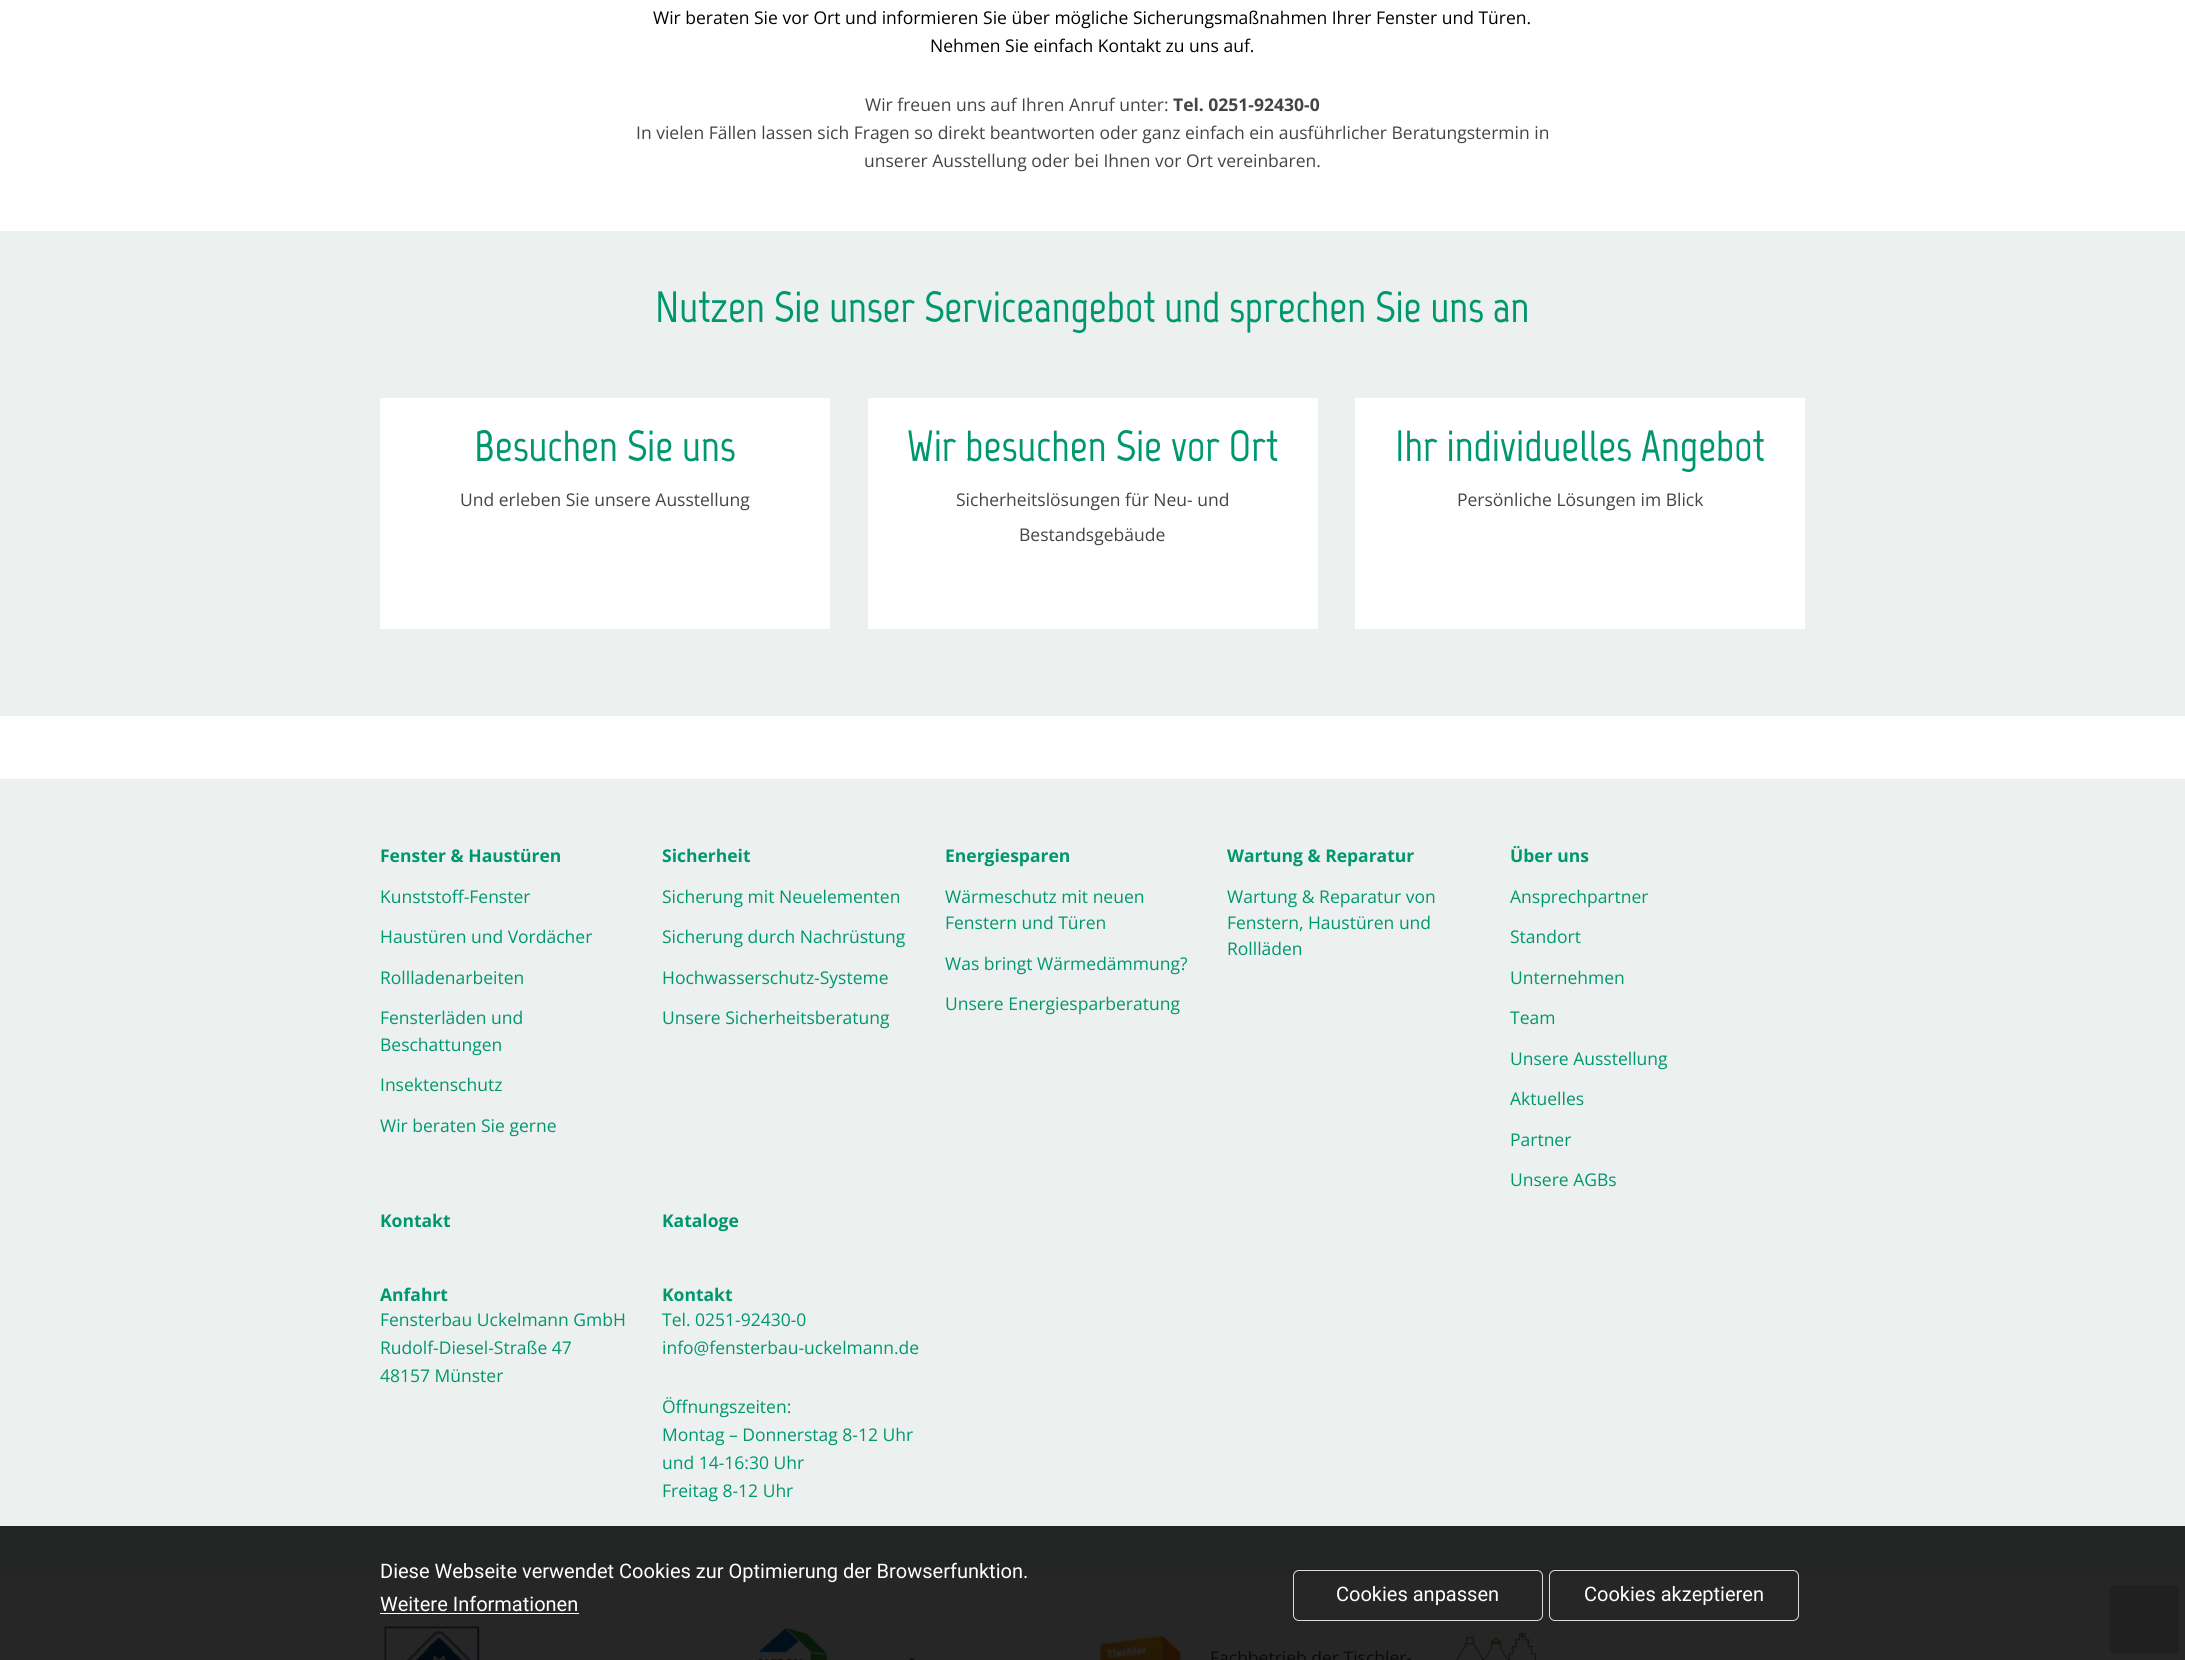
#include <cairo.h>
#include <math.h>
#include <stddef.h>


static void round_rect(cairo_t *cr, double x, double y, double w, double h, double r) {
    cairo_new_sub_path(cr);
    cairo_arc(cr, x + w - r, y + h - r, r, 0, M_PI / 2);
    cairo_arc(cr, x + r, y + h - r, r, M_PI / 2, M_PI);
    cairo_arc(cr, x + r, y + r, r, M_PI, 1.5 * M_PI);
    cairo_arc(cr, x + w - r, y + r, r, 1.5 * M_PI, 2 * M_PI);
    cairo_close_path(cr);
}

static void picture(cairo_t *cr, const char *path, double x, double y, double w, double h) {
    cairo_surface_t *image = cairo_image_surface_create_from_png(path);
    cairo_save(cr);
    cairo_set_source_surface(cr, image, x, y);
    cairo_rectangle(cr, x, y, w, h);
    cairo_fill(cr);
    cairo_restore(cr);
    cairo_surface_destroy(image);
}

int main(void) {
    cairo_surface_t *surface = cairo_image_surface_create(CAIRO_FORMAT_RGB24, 2185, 1660);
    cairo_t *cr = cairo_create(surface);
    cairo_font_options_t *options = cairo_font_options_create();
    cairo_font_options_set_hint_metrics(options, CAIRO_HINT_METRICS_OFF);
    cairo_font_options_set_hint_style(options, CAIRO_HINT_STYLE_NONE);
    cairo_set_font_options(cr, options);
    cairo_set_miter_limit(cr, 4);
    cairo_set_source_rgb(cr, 1, 1, 1);
    cairo_paint(cr);
    cairo_set_source_rgb(cr, 0.149, 0.149, 0.149);
    cairo_rectangle(cr, 0, 1575, 2185, 85);
    cairo_fill(cr);
    cairo_select_font_face(cr, "Open Sans", CAIRO_FONT_SLANT_NORMAL, CAIRO_FONT_WEIGHT_NORMAL);
    cairo_set_font_size(cr, 17.5);
    cairo_set_source_rgb(cr, 0, 0, 0);
    cairo_move_to(cr, 653, 24);
    cairo_show_text(cr, "Wir beraten Sie vor Ort und informieren Sie über mögliche Sicherungsmaßnahmen Ihrer Fenster und Türen.");
    cairo_move_to(cr, 930, 52);
    cairo_show_text(cr, "Nehmen Sie einfach Kontakt zu uns auf.");
    cairo_set_source_rgb(cr, 0.267, 0.267, 0.267);
    cairo_move_to(cr, 865, 111);
    cairo_show_text(cr, "Wir freuen uns auf Ihren Anruf unter:");
    cairo_select_font_face(cr, "Open Sans", CAIRO_FONT_SLANT_NORMAL, CAIRO_FONT_WEIGHT_BOLD);
    cairo_move_to(cr, 1173, 111);
    cairo_show_text(cr, "Tel. 0251-92430-0");
    cairo_select_font_face(cr, "Open Sans", CAIRO_FONT_SLANT_NORMAL, CAIRO_FONT_WEIGHT_NORMAL);
    cairo_move_to(cr, 636, 139);
    cairo_show_text(cr, "In vielen Fällen lassen sich Fragen so direkt beantworten oder ganz einfach ein ausführlicher Beratungstermin in");
    cairo_move_to(cr, 864, 167);
    cairo_show_text(cr, "unserer Ausstellung oder bei Ihnen vor Ort vereinbaren.");
    cairo_set_source_rgb(cr, 0.925, 0.941, 0.933);
    cairo_rectangle(cr, 0, 231, 2185, 485);
    cairo_fill(cr);
    cairo_select_font_face(cr, "Marvel", CAIRO_FONT_SLANT_NORMAL, CAIRO_FONT_WEIGHT_BOLD);
    cairo_set_font_size(cr, 43.75);
    cairo_set_source_rgb(cr, 0, 0.592, 0.435);
    cairo_move_to(cr, 655, 322);
    cairo_show_text(cr, "Nutzen Sie unser Serviceangebot und sprechen Sie uns an");
    cairo_set_source_rgb(cr, 1, 1, 1);
    cairo_rectangle(cr, 380, 398, 450, 231);
    cairo_fill(cr);
    cairo_set_source_rgb(cr, 0, 0.592, 0.435);
    cairo_move_to(cr, 474, 461);
    cairo_show_text(cr, "Besuchen Sie uns");
    cairo_select_font_face(cr, "Open Sans", CAIRO_FONT_SLANT_NORMAL, CAIRO_FONT_WEIGHT_NORMAL);
    cairo_set_font_size(cr, 17.5);
    cairo_set_source_rgb(cr, 0.267, 0.267, 0.267);
    cairo_move_to(cr, 460, 506);
    cairo_show_text(cr, "Und erleben Sie unsere Ausstellung");
    cairo_set_source_rgb(cr, 1, 1, 1);
    cairo_rectangle(cr, 868, 398, 450, 231);
    cairo_fill(cr);
    cairo_select_font_face(cr, "Marvel", CAIRO_FONT_SLANT_NORMAL, CAIRO_FONT_WEIGHT_BOLD);
    cairo_set_font_size(cr, 43.75);
    cairo_set_source_rgb(cr, 0, 0.592, 0.435);
    cairo_move_to(cr, 907, 461);
    cairo_show_text(cr, "Wir besuchen Sie vor Ort");
    cairo_select_font_face(cr, "Open Sans", CAIRO_FONT_SLANT_NORMAL, CAIRO_FONT_WEIGHT_NORMAL);
    cairo_set_font_size(cr, 17.5);
    cairo_set_source_rgb(cr, 0.267, 0.267, 0.267);
    cairo_move_to(cr, 956, 506);
    cairo_show_text(cr, "Sicherheitslösungen für Neu- und");
    cairo_move_to(cr, 1019, 541);
    cairo_show_text(cr, "Bestandsgebäude");
    cairo_set_source_rgb(cr, 1, 1, 1);
    cairo_rectangle(cr, 1355, 398, 450, 231);
    cairo_fill(cr);
    cairo_select_font_face(cr, "Marvel", CAIRO_FONT_SLANT_NORMAL, CAIRO_FONT_WEIGHT_BOLD);
    cairo_set_font_size(cr, 43.75);
    cairo_set_source_rgb(cr, 0, 0.592, 0.435);
    cairo_move_to(cr, 1395, 461);
    cairo_show_text(cr, "Ihr individuelles Angebot");
    cairo_select_font_face(cr, "Open Sans", CAIRO_FONT_SLANT_NORMAL, CAIRO_FONT_WEIGHT_NORMAL);
    cairo_set_font_size(cr, 17.5);
    cairo_set_source_rgb(cr, 0.267, 0.267, 0.267);
    cairo_move_to(cr, 1457, 506);
    cairo_show_text(cr, "Persönliche Lösungen im Blick");
    cairo_set_source_rgb(cr, 0.925, 0.941, 0.933);
    cairo_rectangle(cr, 0, 780, 2185, 746);
    cairo_fill(cr);
    cairo_set_source_rgb(cr, 0.137, 0.141, 0.141);
    cairo_rectangle(cr, 0, 1526, 2185, 48);
    cairo_fill(cr);
    cairo_set_source_rgb(cr, 0.918, 0.918, 0.918);
    cairo_rectangle(cr, 0, 779, 2185, 1);
    cairo_fill(cr);
    cairo_set_source_rgb(cr, 0.137, 0.137, 0.137);
    cairo_rectangle(cr, 0, 1574, 2185, 1);
    cairo_fill(cr);
    cairo_select_font_face(cr, "Open Sans", CAIRO_FONT_SLANT_NORMAL, CAIRO_FONT_WEIGHT_BOLD);
    cairo_set_source_rgb(cr, 0, 0.592, 0.435);
    cairo_move_to(cr, 380, 862);
    cairo_show_text(cr, "Fenster & Haustüren");
    cairo_select_font_face(cr, "Open Sans", CAIRO_FONT_SLANT_NORMAL, CAIRO_FONT_WEIGHT_NORMAL);
    cairo_move_to(cr, 380, 903);
    cairo_show_text(cr, "Kunststoff-Fenster");
    cairo_move_to(cr, 380, 943);
    cairo_show_text(cr, "Haustüren und Vordächer");
    cairo_move_to(cr, 380, 984);
    cairo_show_text(cr, "Rollladenarbeiten");
    cairo_move_to(cr, 380, 1024);
    cairo_show_text(cr, "Fensterläden und");
    cairo_move_to(cr, 380, 1051);
    cairo_show_text(cr, "Beschattungen");
    cairo_move_to(cr, 380, 1091);
    cairo_show_text(cr, "Insektenschutz");
    cairo_move_to(cr, 380, 1132);
    cairo_show_text(cr, "Wir beraten Sie gerne");
    cairo_select_font_face(cr, "Open Sans", CAIRO_FONT_SLANT_NORMAL, CAIRO_FONT_WEIGHT_BOLD);
    cairo_move_to(cr, 662, 862);
    cairo_show_text(cr, "Sicherheit");
    cairo_select_font_face(cr, "Open Sans", CAIRO_FONT_SLANT_NORMAL, CAIRO_FONT_WEIGHT_NORMAL);
    cairo_move_to(cr, 662, 903);
    cairo_show_text(cr, "Sicherung mit Neuelementen");
    cairo_move_to(cr, 662, 943);
    cairo_show_text(cr, "Sicherung durch Nachrüstung");
    cairo_move_to(cr, 662, 984);
    cairo_show_text(cr, "Hochwasserschutz-Systeme");
    cairo_move_to(cr, 662, 1024);
    cairo_show_text(cr, "Unsere Sicherheitsberatung");
    cairo_select_font_face(cr, "Open Sans", CAIRO_FONT_SLANT_NORMAL, CAIRO_FONT_WEIGHT_BOLD);
    cairo_move_to(cr, 945, 862);
    cairo_show_text(cr, "Energiesparen");
    cairo_select_font_face(cr, "Open Sans", CAIRO_FONT_SLANT_NORMAL, CAIRO_FONT_WEIGHT_NORMAL);
    cairo_move_to(cr, 945, 903);
    cairo_show_text(cr, "Wärmeschutz mit neuen");
    cairo_move_to(cr, 945, 929);
    cairo_show_text(cr, "Fenstern und Türen");
    cairo_move_to(cr, 945, 970);
    cairo_show_text(cr, "Was bringt Wärmedämmung?");
    cairo_move_to(cr, 945, 1010);
    cairo_show_text(cr, "Unsere Energiesparberatung");
    cairo_select_font_face(cr, "Open Sans", CAIRO_FONT_SLANT_NORMAL, CAIRO_FONT_WEIGHT_BOLD);
    cairo_move_to(cr, 1227, 862);
    cairo_show_text(cr, "Wartung & Reparatur");
    cairo_select_font_face(cr, "Open Sans", CAIRO_FONT_SLANT_NORMAL, CAIRO_FONT_WEIGHT_NORMAL);
    cairo_move_to(cr, 1227, 903);
    cairo_show_text(cr, "Wartung & Reparatur von");
    cairo_move_to(cr, 1227, 929);
    cairo_show_text(cr, "Fenstern, Haustüren und");
    cairo_move_to(cr, 1227, 955);
    cairo_show_text(cr, "Rollläden");
    cairo_select_font_face(cr, "Open Sans", CAIRO_FONT_SLANT_NORMAL, CAIRO_FONT_WEIGHT_BOLD);
    cairo_move_to(cr, 1510, 862);
    cairo_show_text(cr, "Über uns");
    cairo_select_font_face(cr, "Open Sans", CAIRO_FONT_SLANT_NORMAL, CAIRO_FONT_WEIGHT_NORMAL);
    cairo_move_to(cr, 1510, 903);
    cairo_show_text(cr, "Ansprechpartner");
    cairo_move_to(cr, 1510, 943);
    cairo_show_text(cr, "Standort");
    cairo_move_to(cr, 1510, 984);
    cairo_show_text(cr, "Unternehmen");
    cairo_move_to(cr, 1510, 1024);
    cairo_show_text(cr, "Team");
    cairo_move_to(cr, 1510, 1065);
    cairo_show_text(cr, "Unsere Ausstellung");
    cairo_move_to(cr, 1510, 1105);
    cairo_show_text(cr, "Aktuelles");
    cairo_move_to(cr, 1510, 1146);
    cairo_show_text(cr, "Partner");
    cairo_move_to(cr, 1510, 1186);
    cairo_show_text(cr, "Unsere AGBs");
    cairo_select_font_face(cr, "Open Sans", CAIRO_FONT_SLANT_NORMAL, CAIRO_FONT_WEIGHT_BOLD);
    cairo_move_to(cr, 380, 1227);
    cairo_show_text(cr, "Kontakt");
    cairo_move_to(cr, 662, 1227);
    cairo_show_text(cr, "Kataloge");
    cairo_move_to(cr, 380, 1301);
    cairo_show_text(cr, "Anfahrt");
    cairo_select_font_face(cr, "Open Sans", CAIRO_FONT_SLANT_NORMAL, CAIRO_FONT_WEIGHT_NORMAL);
    cairo_move_to(cr, 380, 1326);
    cairo_show_text(cr, "Fensterbau Uckelmann GmbH");
    cairo_move_to(cr, 380, 1354);
    cairo_show_text(cr, "Rudolf-Diesel-Straße 47");
    cairo_move_to(cr, 380, 1382);
    cairo_show_text(cr, "48157 Münster");
    cairo_select_font_face(cr, "Open Sans", CAIRO_FONT_SLANT_NORMAL, CAIRO_FONT_WEIGHT_BOLD);
    cairo_move_to(cr, 662, 1301);
    cairo_show_text(cr, "Kontakt");
    cairo_select_font_face(cr, "Open Sans", CAIRO_FONT_SLANT_NORMAL, CAIRO_FONT_WEIGHT_NORMAL);
    cairo_move_to(cr, 662, 1326);
    cairo_show_text(cr, "Tel. 0251-92430-0");
    cairo_move_to(cr, 662, 1354);
    cairo_show_text(cr, "info@fensterbau-uckelmann.de");
    cairo_move_to(cr, 662, 1413);
    cairo_show_text(cr, "Öffnungszeiten:");
    cairo_move_to(cr, 662, 1441);
    cairo_show_text(cr, "Montag – Donnerstag 8-12 Uhr");
    cairo_move_to(cr, 662, 1469);
    cairo_show_text(cr, "und 14-16:30 Uhr");
    cairo_move_to(cr, 662, 1497);
    cairo_show_text(cr, "Freitag 8-12 Uhr");
    cairo_set_source_rgb(cr, 0.125, 0.125, 0.125);
    round_rect(cr, 2110, 1585, 69, 69, 4);
    cairo_fill(cr);
    picture(cr, "img1.png", 384, 1626, 96, 34);
    picture(cr, "img2.png", 758, 1627, 70, 33);
    cairo_set_source_rgb(cr, 0.039, 0.039, 0.039);
    cairo_move_to(cr, 909, 1664);
    cairo_show_text(cr, "-");
    picture(cr, "img3.png", 1099, 1635, 83, 25);
    cairo_move_to(cr, 1210, 1664);
    cairo_show_text(cr, "Fachbetrieb der Tischler-");
    picture(cr, "img4.png", 1456, 1632, 80, 28);
    cairo_select_font_face(cr, "Roboto", CAIRO_FONT_SLANT_NORMAL, CAIRO_FONT_WEIGHT_NORMAL);
    cairo_set_font_size(cr, 20);
    cairo_set_source_rgb(cr, 1, 1, 1);
    cairo_move_to(cr, 380, 1578);
    cairo_show_text(cr, "Diese Webseite verwendet Cookies zur Optimierung der Browserfunktion.");
    cairo_move_to(cr, 380, 1611);
    cairo_show_text(cr, "Weitere Informationen");
    cairo_rectangle(cr, 380, 1613, 199, 1);
    cairo_fill(cr);
    round_rect(cr, 1293.5, 1570.5, 249, 50, 5.5);
    cairo_set_source_rgb(cr, 0.863, 0.863, 0.863);
    cairo_set_line_width(cr, 1);
    cairo_stroke(cr);
    cairo_set_source_rgb(cr, 1, 1, 1);
    cairo_move_to(cr, 1336, 1601);
    cairo_show_text(cr, "Cookies anpassen");
    round_rect(cr, 1549.5, 1570.5, 249, 50, 5.5);
    cairo_set_source_rgb(cr, 0.863, 0.863, 0.863);
    cairo_stroke(cr);
    cairo_set_source_rgb(cr, 1, 1, 1);
    cairo_move_to(cr, 1584, 1601);
    cairo_show_text(cr, "Cookies akzeptieren");
    cairo_surface_write_to_png(surface, "page.png");
    cairo_font_options_destroy(options);
    cairo_destroy(cr);
    cairo_surface_destroy(surface);
    return 0;
}
